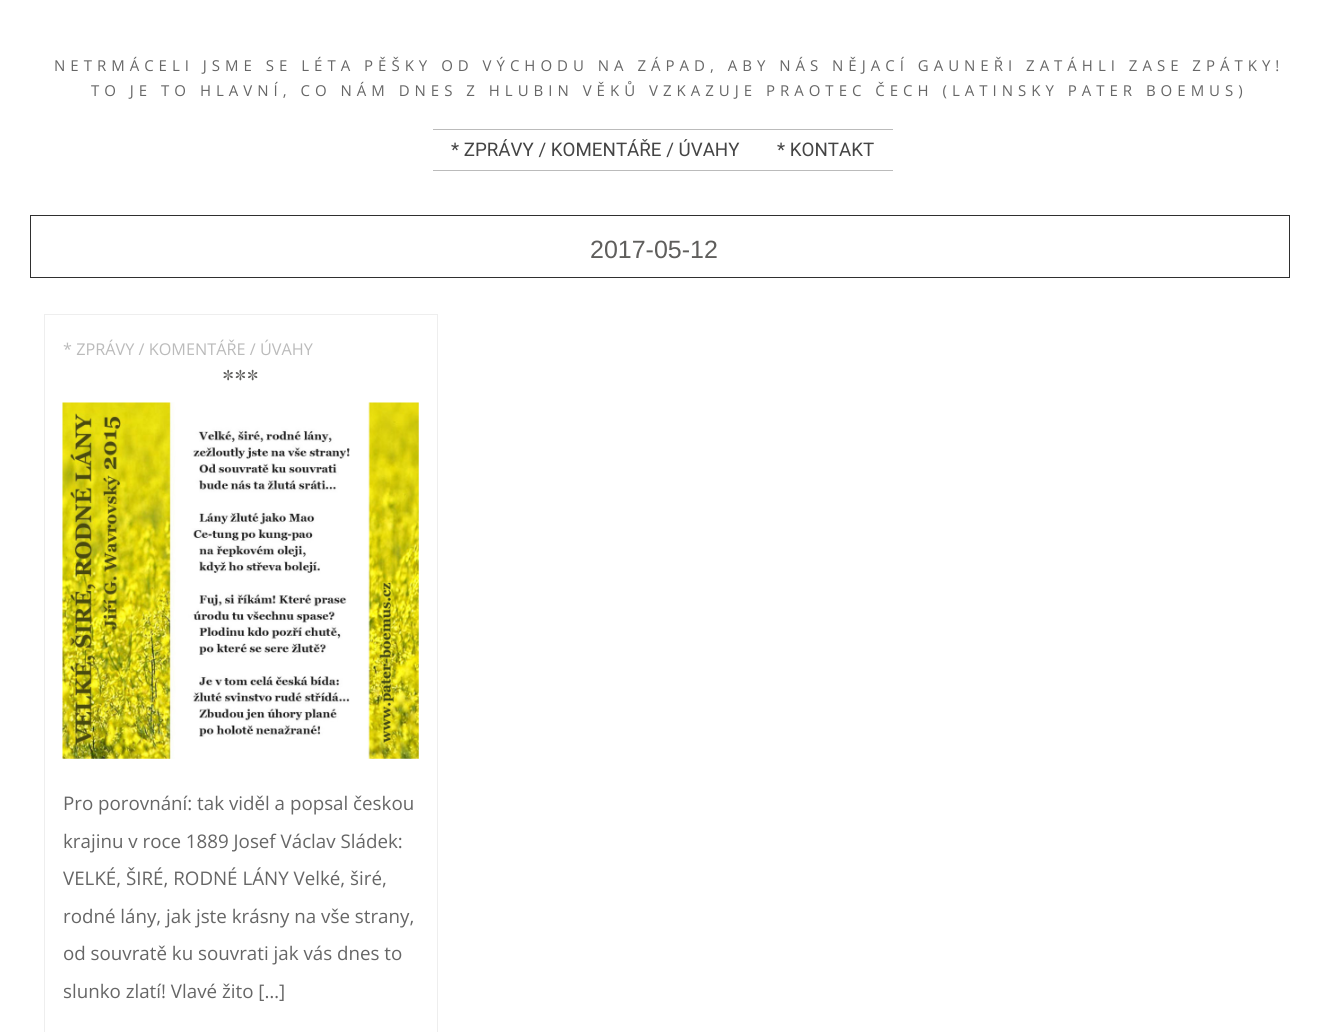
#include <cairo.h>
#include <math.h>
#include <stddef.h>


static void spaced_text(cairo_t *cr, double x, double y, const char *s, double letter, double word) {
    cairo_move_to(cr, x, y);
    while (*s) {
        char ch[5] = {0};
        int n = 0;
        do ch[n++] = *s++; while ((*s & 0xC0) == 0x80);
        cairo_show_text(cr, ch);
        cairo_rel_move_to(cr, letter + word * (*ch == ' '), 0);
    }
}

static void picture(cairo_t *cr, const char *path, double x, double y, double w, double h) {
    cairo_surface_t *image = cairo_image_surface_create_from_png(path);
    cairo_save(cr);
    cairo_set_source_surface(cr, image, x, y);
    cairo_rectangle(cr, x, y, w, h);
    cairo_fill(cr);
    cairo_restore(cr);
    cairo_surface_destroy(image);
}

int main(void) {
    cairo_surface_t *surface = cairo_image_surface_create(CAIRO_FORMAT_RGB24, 1320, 1032);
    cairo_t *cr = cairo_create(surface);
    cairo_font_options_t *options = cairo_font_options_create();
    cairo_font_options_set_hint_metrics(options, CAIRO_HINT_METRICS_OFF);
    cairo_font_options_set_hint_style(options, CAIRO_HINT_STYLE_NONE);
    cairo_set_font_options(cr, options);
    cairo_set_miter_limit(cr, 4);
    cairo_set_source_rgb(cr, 1, 1, 1);
    cairo_paint(cr);
    cairo_select_font_face(cr, "Open Sans", CAIRO_FONT_SLANT_NORMAL, CAIRO_FONT_WEIGHT_NORMAL);
    cairo_set_font_size(cr, 15);
    cairo_set_source_rgb(cr, 0.4, 0.4, 0.4);
    spaced_text(cr, 54, 71, "NETRMÁCELI JSME SE LÉTA PĚŠKY OD VÝCHODU NA ZÁPAD, ABY NÁS NĚJACÍ GAUNEŘI ZATÁHLI ZASE ZPÁTKY!", 5, 0);
    spaced_text(cr, 91, 96, "TO JE TO HLAVNÍ, CO NÁM DNES Z HLUBIN VĚKŮ VZKAZUJE PRAOTEC ČECH (LATINSKY PATER BOEMUS)", 5, 0);
    cairo_set_source_rgb(cr, 0.733, 0.733, 0.733);
    cairo_rectangle(cr, 433, 129, 460, 1);
    cairo_fill(cr);
    cairo_rectangle(cr, 433, 170, 460, 1);
    cairo_fill(cr);
    cairo_select_font_face(cr, "Roboto", CAIRO_FONT_SLANT_NORMAL, CAIRO_FONT_WEIGHT_NORMAL);
    cairo_set_font_size(cr, 18.75);
    cairo_set_source_rgb(cr, 0.267, 0.267, 0.267);
    cairo_move_to(cr, 451, 156);
    cairo_show_text(cr, "* ZPRÁVY / KOMENTÁŘE / ÚVAHY");
    cairo_move_to(cr, 777, 156);
    cairo_show_text(cr, "* KONTAKT");
    cairo_rectangle(cr, 30.5, 215.5, 1259, 62);
    cairo_set_source_rgb(cr, 0.184, 0.184, 0.184);
    cairo_set_line_width(cr, 1);
    cairo_stroke(cr);
    cairo_select_font_face(cr, "Liberation Sans", CAIRO_FONT_SLANT_NORMAL, CAIRO_FONT_WEIGHT_NORMAL);
    cairo_set_font_size(cr, 25);
    cairo_set_source_rgb(cr, 0.373, 0.369, 0.361);
    cairo_move_to(cr, 590, 258);
    cairo_show_text(cr, "2017-05-12");
    cairo_rectangle(cr, 44.5, 314.5, 393, 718);
    cairo_set_source_rgb(cr, 0.933, 0.933, 0.933);
    cairo_stroke(cr);
    cairo_select_font_face(cr, "Open Sans", CAIRO_FONT_SLANT_NORMAL, CAIRO_FONT_WEIGHT_NORMAL);
    cairo_set_font_size(cr, 16.25);
    cairo_set_source_rgb(cr, 0.733, 0.733, 0.733);
    cairo_move_to(cr, 63, 355);
    cairo_show_text(cr, "* ZPRÁVY / KOMENTÁŘE / ÚVAHY");
    cairo_select_font_face(cr, "Playfair Display", CAIRO_FONT_SLANT_NORMAL, CAIRO_FONT_WEIGHT_NORMAL);
    cairo_set_font_size(cr, 25);
    cairo_set_source_rgb(cr, 0.373, 0.369, 0.361);
    cairo_move_to(cr, 222, 388);
    cairo_show_text(cr, "***");
    picture(cr, "img1.png", 62, 402, 357, 357);
    cairo_select_font_face(cr, "Open Sans", CAIRO_FONT_SLANT_NORMAL, CAIRO_FONT_WEIGHT_NORMAL);
    cairo_set_font_size(cr, 18.75);
    cairo_set_source_rgb(cr, 0.4, 0.4, 0.4);
    cairo_move_to(cr, 63, 810);
    cairo_show_text(cr, "Pro porovnání: tak viděl a popsal českou");
    cairo_move_to(cr, 63, 848);
    cairo_show_text(cr, "krajinu v roce 1889 Josef Václav Sládek:");
    cairo_move_to(cr, 63, 885);
    cairo_show_text(cr, "VELKÉ, ŠIRÉ, RODNÉ LÁNY Velké, širé,");
    cairo_move_to(cr, 63, 923);
    cairo_show_text(cr, "rodné lány, jak jste krásny na vše strany,");
    cairo_move_to(cr, 63, 960);
    cairo_show_text(cr, "od souvratě ku souvrati jak vás dnes to");
    cairo_move_to(cr, 63, 998);
    cairo_show_text(cr, "slunko zlatí! Vlavé žito […]");
    cairo_surface_write_to_png(surface, "page.png");
    cairo_font_options_destroy(options);
    cairo_destroy(cr);
    cairo_surface_destroy(surface);
    return 0;
}
